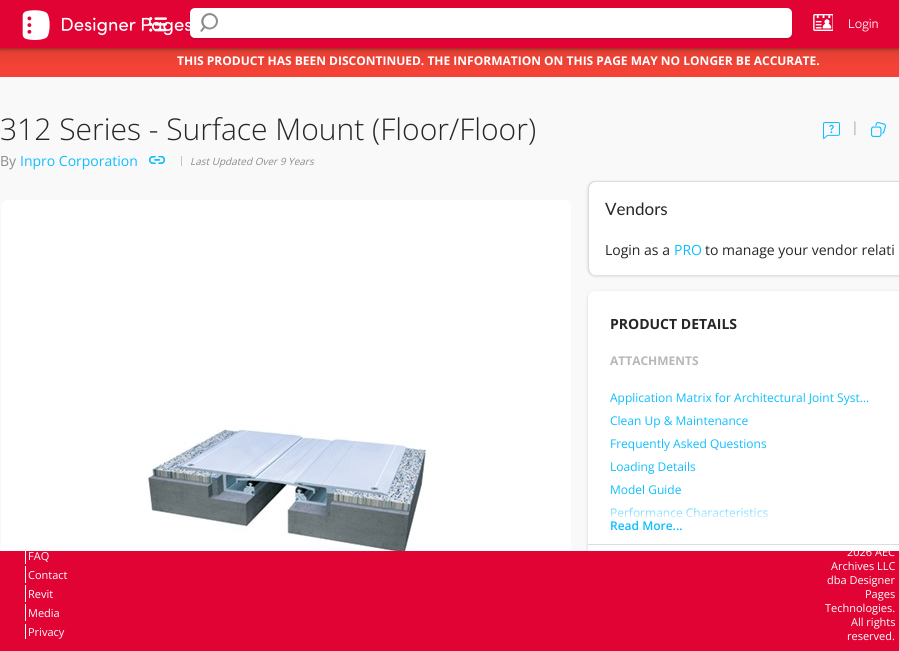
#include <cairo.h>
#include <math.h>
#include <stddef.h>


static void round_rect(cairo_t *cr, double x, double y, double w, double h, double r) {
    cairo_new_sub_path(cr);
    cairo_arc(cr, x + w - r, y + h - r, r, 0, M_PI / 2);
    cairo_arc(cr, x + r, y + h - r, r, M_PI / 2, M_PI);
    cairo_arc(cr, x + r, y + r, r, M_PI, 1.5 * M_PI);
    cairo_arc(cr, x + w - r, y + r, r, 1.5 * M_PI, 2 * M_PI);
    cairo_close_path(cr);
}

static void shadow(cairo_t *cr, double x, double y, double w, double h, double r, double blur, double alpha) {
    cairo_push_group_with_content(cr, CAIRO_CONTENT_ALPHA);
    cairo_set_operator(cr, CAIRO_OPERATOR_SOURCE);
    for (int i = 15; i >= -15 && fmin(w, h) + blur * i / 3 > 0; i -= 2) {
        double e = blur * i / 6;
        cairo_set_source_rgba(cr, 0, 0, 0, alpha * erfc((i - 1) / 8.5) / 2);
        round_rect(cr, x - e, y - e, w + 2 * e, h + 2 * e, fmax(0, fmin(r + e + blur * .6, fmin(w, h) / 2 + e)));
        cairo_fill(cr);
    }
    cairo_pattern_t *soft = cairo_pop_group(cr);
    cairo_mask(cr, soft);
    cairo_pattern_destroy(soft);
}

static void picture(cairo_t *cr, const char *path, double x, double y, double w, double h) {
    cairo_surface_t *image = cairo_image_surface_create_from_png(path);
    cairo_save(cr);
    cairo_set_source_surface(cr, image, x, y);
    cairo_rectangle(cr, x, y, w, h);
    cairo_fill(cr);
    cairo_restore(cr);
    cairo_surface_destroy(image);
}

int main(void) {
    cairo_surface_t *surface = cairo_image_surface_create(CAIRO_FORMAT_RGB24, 899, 651);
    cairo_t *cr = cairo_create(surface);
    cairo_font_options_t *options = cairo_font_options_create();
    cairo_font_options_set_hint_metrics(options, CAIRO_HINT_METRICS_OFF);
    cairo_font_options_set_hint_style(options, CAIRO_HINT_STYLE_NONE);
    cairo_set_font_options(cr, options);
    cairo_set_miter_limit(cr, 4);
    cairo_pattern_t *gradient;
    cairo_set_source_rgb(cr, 0.973, 0.973, 0.973);
    cairo_paint(cr);
    gradient = cairo_pattern_create_linear(-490, 44, -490, 69);
    cairo_pattern_add_color_stop_rgba(gradient, 0, 0.878, 0.243, 0.196, 1);
    cairo_pattern_add_color_stop_rgba(gradient, 1, 0.957, 0.263, 0.212, 1);
    cairo_set_source(cr, gradient);
    cairo_pattern_destroy(gradient);
    cairo_rectangle(cr, 0, 48, 899, 29);
    cairo_fill(cr);
    cairo_set_source_rgb(cr, 0, 0, 0);
    shadow(cr, 0, 1, 899, 48, 0, 2, 0.4);
    cairo_set_source_rgb(cr, 0.882, 0.012, 0.204);
    cairo_rectangle(cr, 0, 0, 899, 48);
    cairo_fill(cr);
    picture(cr, "img1.png", 22, 10, 168, 30);
    picture(cr, "img2.png", 149, 17, 18, 15);
    cairo_set_source_rgb(cr, 0, 0, 0);
    shadow(cr, 190, 9, 602, 30, 5, 1, 0.16);
    cairo_set_source_rgb(cr, 1, 1, 1);
    round_rect(cr, 190, 8, 602, 30, 5);
    cairo_fill(cr);
    picture(cr, "img3.png", 200, 13, 18, 19);
    picture(cr, "img4.png", 813, 14, 20, 17);
    cairo_select_font_face(cr, "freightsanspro", CAIRO_FONT_SLANT_NORMAL, CAIRO_FONT_WEIGHT_NORMAL);
    cairo_set_font_size(cr, 14);
    cairo_move_to(cr, 848, 28);
    cairo_show_text(cr, "Login");
    cairo_select_font_face(cr, "Open Sans", CAIRO_FONT_SLANT_NORMAL, CAIRO_FONT_WEIGHT_BOLD);
    cairo_set_font_size(cr, 12);
    cairo_move_to(cr, 177, 65);
    cairo_show_text(cr, "THIS PRODUCT HAS BEEN DISCONTINUED. THE INFORMATION ON THIS PAGE MAY NO LONGER BE ACCURATE.");
    cairo_select_font_face(cr, "Open Sans Light", CAIRO_FONT_SLANT_NORMAL, CAIRO_FONT_WEIGHT_NORMAL);
    cairo_set_font_size(cr, 30);
    cairo_set_source_rgb(cr, 0.149, 0.149, 0.149);
    cairo_move_to(cr, 0, 140);
    cairo_show_text(cr, "312 Series - Surface Mount (Floor/Floor)");
    cairo_select_font_face(cr, "Open Sans", CAIRO_FONT_SLANT_NORMAL, CAIRO_FONT_WEIGHT_NORMAL);
    cairo_set_font_size(cr, 14);
    cairo_set_source_rgb(cr, 0.553, 0.553, 0.553);
    cairo_move_to(cr, 0, 166);
    cairo_show_text(cr, "By");
    cairo_set_source_rgb(cr, 0.059, 0.745, 1);
    cairo_move_to(cr, 20, 166);
    cairo_show_text(cr, "Inpro Corporation");
    picture(cr, "img5.png", 149, 156, 16, 8);
    picture(cr, "img6.png", 149, 156, 16, 8);
    cairo_set_source_rgb(cr, 0.769, 0.769, 0.769);
    cairo_rectangle(cr, 181, 156, 1, 10);
    cairo_fill(cr);
    cairo_select_font_face(cr, "Open Sans", CAIRO_FONT_SLANT_ITALIC, CAIRO_FONT_WEIGHT_NORMAL);
    cairo_set_font_size(cr, 10);
    cairo_set_source_rgb(cr, 0.553, 0.553, 0.553);
    cairo_move_to(cr, 190, 165);
    cairo_show_text(cr, "Last Updated Over 9 Years");
    picture(cr, "img7.png", 823, 122, 17, 17);
    cairo_select_font_face(cr, "Open Sans", CAIRO_FONT_SLANT_NORMAL, CAIRO_FONT_WEIGHT_BOLD);
    cairo_set_font_size(cr, 14);
    cairo_set_source_rgb(cr, 0.769, 0.769, 0.769);
    cairo_move_to(cr, 851, 132);
    cairo_show_text(cr, "|");
    picture(cr, "img8.png", 871, 122, 15, 15);
    cairo_set_source_rgb(cr, 1, 1, 1);
    round_rect(cr, 1, 200, 570, 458, 7);
    cairo_fill(cr);
    picture(cr, "img9.png", 146, 425, 286, 126);
    cairo_set_source_rgb(cr, 0, 0, 0);
    shadow(cr, 588, 182, 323, 94, 7, 1.5, 0.16);
    cairo_set_source_rgb(cr, 1, 1, 1);
    cairo_new_path(cr);
    cairo_move_to(cr, 595, 182);
    cairo_line_to(cr, 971, 182);
    cairo_curve_to(cr, 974, 182, 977, 185, 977, 188);
    cairo_line_to(cr, 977, 268);
    cairo_curve_to(cr, 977, 272, 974, 275, 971, 275);
    cairo_line_to(cr, 595, 275);
    cairo_curve_to(cr, 592, 275, 589, 272, 589, 268);
    cairo_line_to(cr, 589, 188);
    cairo_curve_to(cr, 589, 185, 592, 182, 595, 182);
    cairo_close_path(cr);
    cairo_fill(cr);
    cairo_set_source_rgb(cr, 0.867, 0.867, 0.867);
    cairo_set_fill_rule(cr, CAIRO_FILL_RULE_EVEN_ODD);
    cairo_new_path(cr);
    cairo_move_to(cr, 595, 181);
    cairo_line_to(cr, 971, 181);
    cairo_curve_to(cr, 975, 181, 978, 184, 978, 188);
    cairo_line_to(cr, 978, 268);
    cairo_curve_to(cr, 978, 272, 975, 275, 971, 275);
    cairo_line_to(cr, 595, 275);
    cairo_curve_to(cr, 591, 275, 588, 272, 588, 268);
    cairo_line_to(cr, 588, 188);
    cairo_curve_to(cr, 588, 184, 591, 181, 595, 181);
    cairo_close_path(cr);
    cairo_move_to(cr, 595, 182);
    cairo_line_to(cr, 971, 182);
    cairo_curve_to(cr, 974, 182, 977, 185, 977, 188);
    cairo_line_to(cr, 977, 268);
    cairo_curve_to(cr, 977, 272, 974, 275, 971, 275);
    cairo_line_to(cr, 595, 275);
    cairo_curve_to(cr, 592, 275, 589, 272, 589, 268);
    cairo_line_to(cr, 589, 188);
    cairo_curve_to(cr, 589, 185, 592, 182, 595, 182);
    cairo_close_path(cr);
    cairo_fill(cr);
    cairo_select_font_face(cr, "Lato", CAIRO_FONT_SLANT_NORMAL, CAIRO_FONT_WEIGHT_NORMAL);
    cairo_set_font_size(cr, 17);
    cairo_set_source_rgb(cr, 0.149, 0.149, 0.149);
    cairo_move_to(cr, 605, 215);
    cairo_show_text(cr, "Vendors");
    cairo_select_font_face(cr, "Open Sans", CAIRO_FONT_SLANT_NORMAL, CAIRO_FONT_WEIGHT_NORMAL);
    cairo_set_font_size(cr, 14);
    cairo_move_to(cr, 605, 255);
    cairo_show_text(cr, "Login as a");
    cairo_set_source_rgb(cr, 0.059, 0.745, 1);
    cairo_move_to(cr, 674, 255);
    cairo_show_text(cr, "PRO");
    cairo_set_source_rgb(cr, 0.149, 0.149, 0.149);
    cairo_move_to(cr, 705, 255);
    cairo_show_text(cr, "to manage your vendor relati");
    cairo_set_source_rgb(cr, 0, 0, 0);
    shadow(cr, 588, 292, 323, 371, 7, 1.5, 0.16);
    cairo_set_source_rgb(cr, 1, 1, 1);
    round_rect(cr, 588, 291, 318, 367, 7);
    cairo_fill(cr);
    cairo_select_font_face(cr, "Open Sans", CAIRO_FONT_SLANT_NORMAL, CAIRO_FONT_WEIGHT_BOLD);
    cairo_set_source_rgb(cr, 0.149, 0.149, 0.149);
    cairo_move_to(cr, 610, 329);
    cairo_show_text(cr, "PRODUCT DETAILS");
    cairo_set_font_size(cr, 12);
    cairo_set_source_rgb(cr, 0.718, 0.718, 0.718);
    cairo_move_to(cr, 610, 365);
    cairo_show_text(cr, "ATTACHMENTS");
    cairo_select_font_face(cr, "Open Sans", CAIRO_FONT_SLANT_NORMAL, CAIRO_FONT_WEIGHT_NORMAL);
    cairo_set_source_rgb(cr, 0.059, 0.745, 1);
    cairo_move_to(cr, 610, 402);
    cairo_show_text(cr, "Application Matrix for Architectural Joint Syst…");
    cairo_move_to(cr, 610, 425);
    cairo_show_text(cr, "Clean Up & Maintenance");
    cairo_move_to(cr, 610, 448);
    cairo_show_text(cr, "Frequently Asked Questions");
    cairo_move_to(cr, 610, 471);
    cairo_show_text(cr, "Loading Details");
    cairo_move_to(cr, 610, 494);
    cairo_show_text(cr, "Model Guide");
    cairo_move_to(cr, 610, 517);
    cairo_show_text(cr, "Performance Characteristics");
    gradient = cairo_pattern_create_linear(794, 501, 794, 544);
    cairo_pattern_add_color_stop_rgba(gradient, 0, 1, 1, 1, 0);
    cairo_pattern_add_color_stop_rgba(gradient, 0.5, 1, 1, 1, 1);
    cairo_set_source(cr, gradient);
    cairo_pattern_destroy(gradient);
    cairo_rectangle(cr, 611, 507, 157, 11);
    cairo_fill(cr);
    cairo_select_font_face(cr, "Open Sans SemiBold", CAIRO_FONT_SLANT_NORMAL, CAIRO_FONT_WEIGHT_NORMAL);
    cairo_set_source_rgb(cr, 0.059, 0.745, 1);
    cairo_move_to(cr, 610, 530);
    cairo_show_text(cr, "Read More...");
    cairo_set_source_rgb(cr, 0.867, 0.867, 0.867);
    cairo_rectangle(cr, 588, 544, 311, 1);
    cairo_fill(cr);
    cairo_set_source_rgb(cr, 0.882, 0.012, 0.204);
    cairo_rectangle(cr, 0, 551, 899, 100);
    cairo_fill(cr);
    cairo_select_font_face(cr, "Open Sans", CAIRO_FONT_SLANT_NORMAL, CAIRO_FONT_WEIGHT_NORMAL);
    cairo_set_font_size(cr, 11);
    cairo_set_source_rgb(cr, 1, 1, 1);
    cairo_move_to(cr, 28, 560);
    cairo_show_text(cr, "FAQ");
    cairo_rectangle(cr, 25, 547, 1, 17);
    cairo_fill(cr);
    cairo_move_to(cr, 28, 579);
    cairo_show_text(cr, "Contact");
    cairo_rectangle(cr, 25, 566, 1, 17);
    cairo_fill(cr);
    cairo_move_to(cr, 28, 598);
    cairo_show_text(cr, "Revit");
    cairo_rectangle(cr, 25, 585, 1, 17);
    cairo_fill(cr);
    cairo_move_to(cr, 28, 617);
    cairo_show_text(cr, "Media");
    cairo_rectangle(cr, 25, 604, 1, 17);
    cairo_fill(cr);
    cairo_move_to(cr, 28, 636);
    cairo_show_text(cr, "Privacy");
    cairo_rectangle(cr, 25, 624, 1, 15);
    cairo_fill(cr);
    cairo_move_to(cr, 847, 556);
    cairo_show_text(cr, "2026 AEC");
    cairo_move_to(cr, 831, 570);
    cairo_show_text(cr, "Archives LLC");
    cairo_move_to(cr, 827, 584);
    cairo_show_text(cr, "dba Designer");
    cairo_move_to(cr, 865, 598);
    cairo_show_text(cr, "Pages");
    cairo_move_to(cr, 825, 612);
    cairo_show_text(cr, "Technologies.");
    cairo_move_to(cr, 851, 626);
    cairo_show_text(cr, "All rights");
    cairo_move_to(cr, 847, 640);
    cairo_show_text(cr, "reserved.");
    cairo_surface_write_to_png(surface, "page.png");
    cairo_font_options_destroy(options);
    cairo_destroy(cr);
    cairo_surface_destroy(surface);
    return 0;
}
